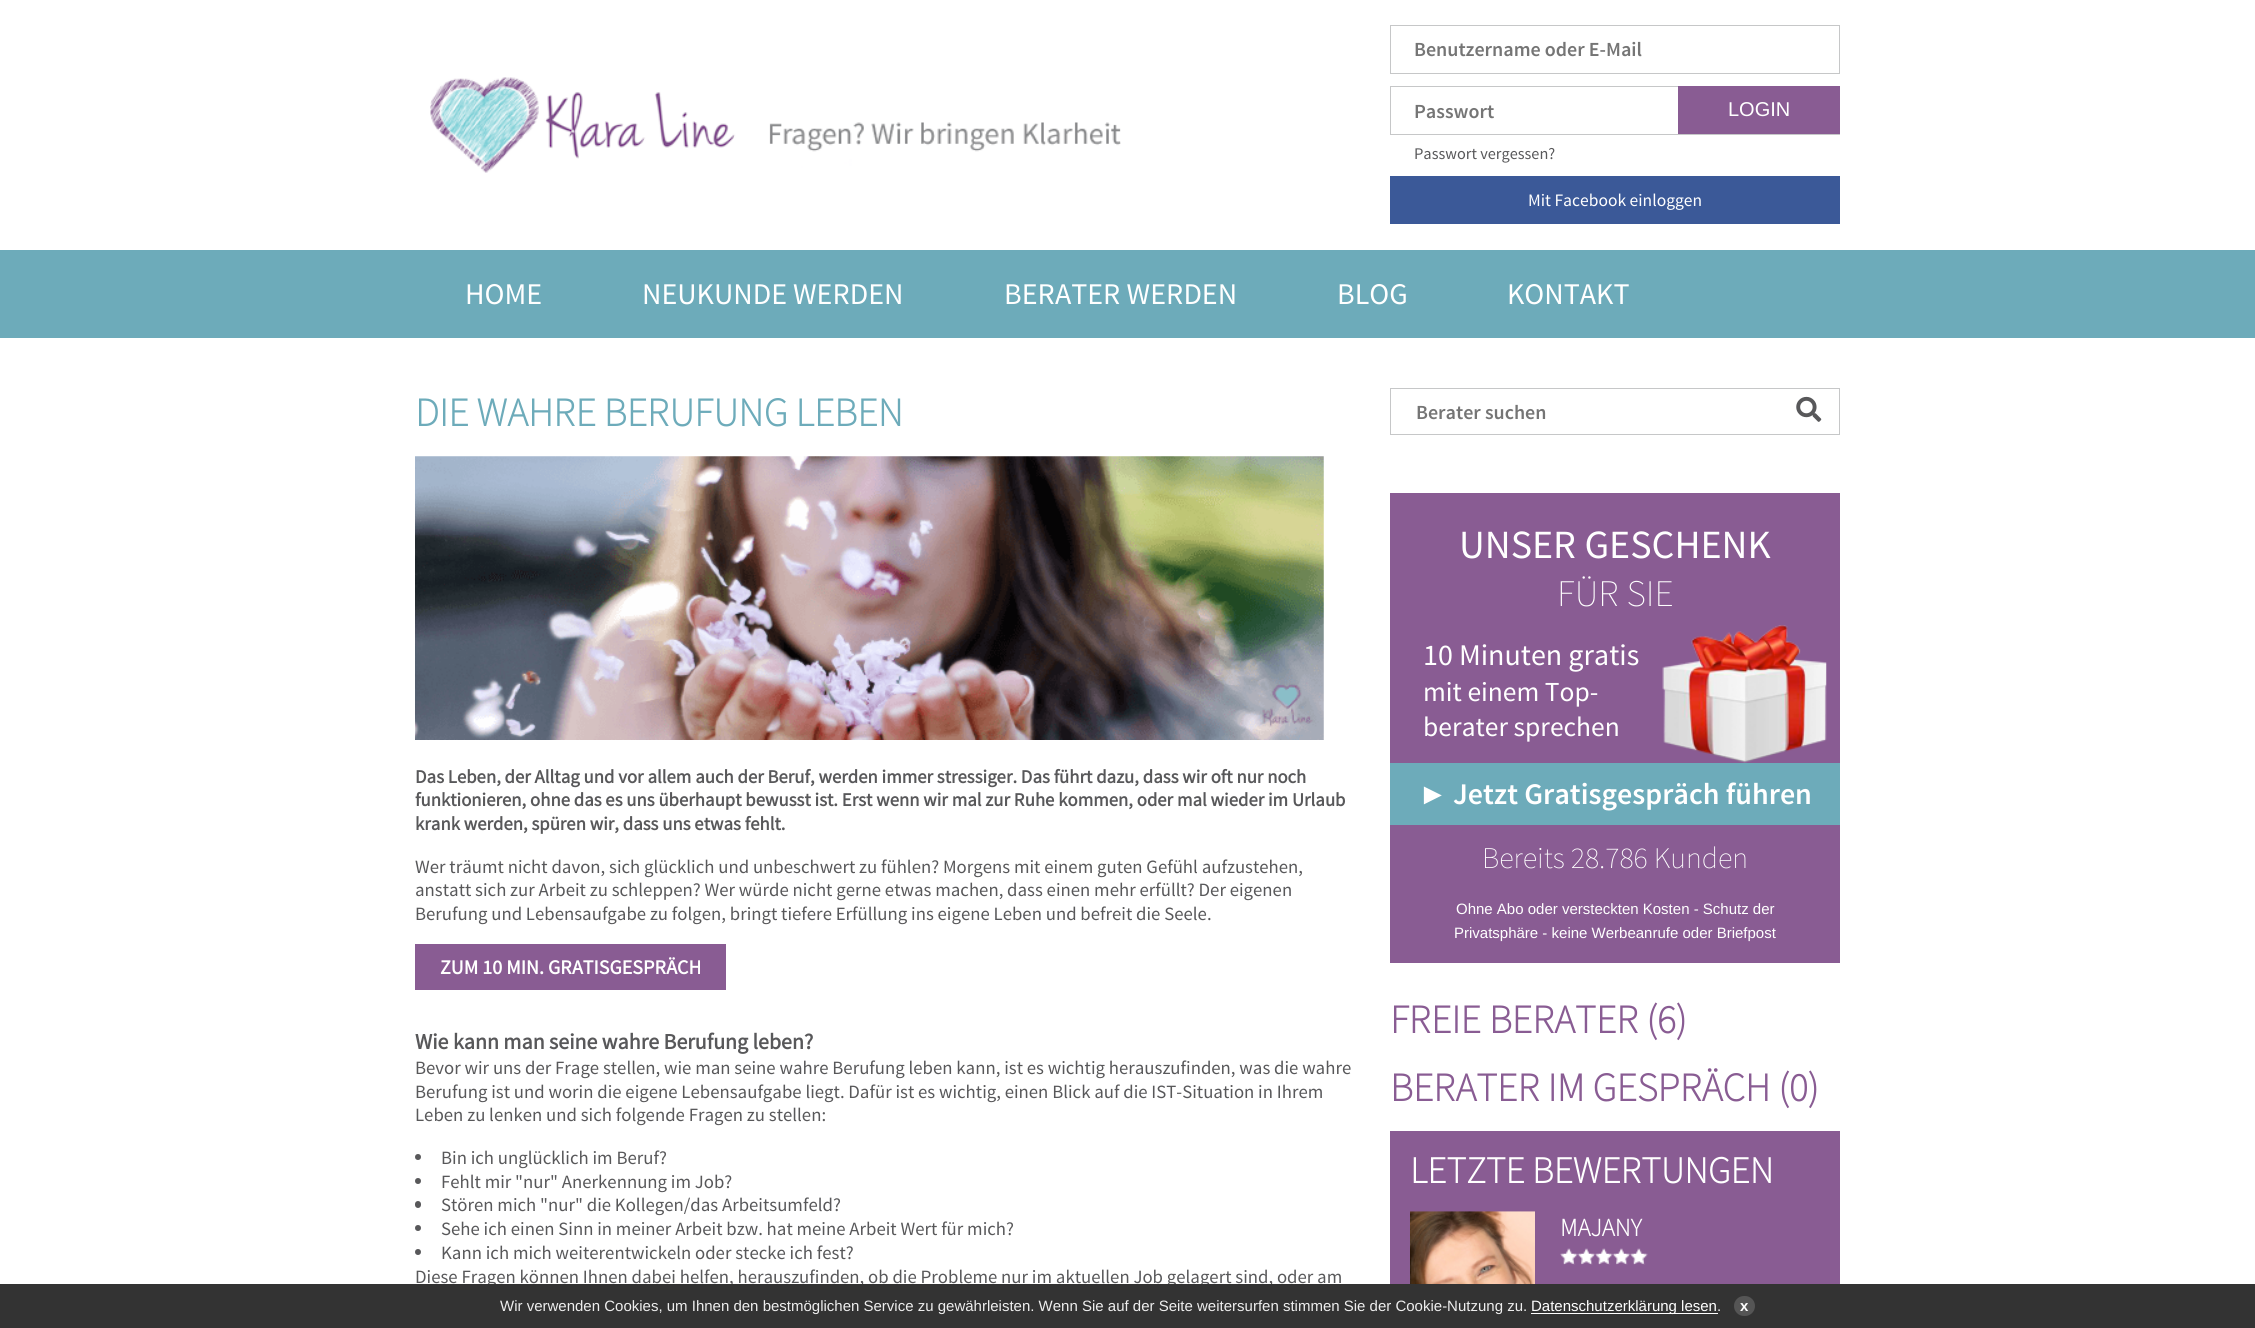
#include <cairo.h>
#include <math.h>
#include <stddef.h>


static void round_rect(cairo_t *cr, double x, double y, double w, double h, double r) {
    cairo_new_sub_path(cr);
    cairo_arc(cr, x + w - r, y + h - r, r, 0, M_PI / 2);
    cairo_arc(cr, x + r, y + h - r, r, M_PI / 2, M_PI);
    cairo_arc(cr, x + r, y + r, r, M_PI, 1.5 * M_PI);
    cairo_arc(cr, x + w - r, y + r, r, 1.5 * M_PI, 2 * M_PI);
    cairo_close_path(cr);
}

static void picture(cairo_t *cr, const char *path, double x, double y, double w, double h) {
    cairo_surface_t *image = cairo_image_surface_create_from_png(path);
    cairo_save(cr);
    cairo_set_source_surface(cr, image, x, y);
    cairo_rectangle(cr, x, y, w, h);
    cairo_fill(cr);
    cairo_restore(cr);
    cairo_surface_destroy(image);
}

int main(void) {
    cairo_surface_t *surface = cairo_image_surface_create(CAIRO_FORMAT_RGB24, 2255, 1328);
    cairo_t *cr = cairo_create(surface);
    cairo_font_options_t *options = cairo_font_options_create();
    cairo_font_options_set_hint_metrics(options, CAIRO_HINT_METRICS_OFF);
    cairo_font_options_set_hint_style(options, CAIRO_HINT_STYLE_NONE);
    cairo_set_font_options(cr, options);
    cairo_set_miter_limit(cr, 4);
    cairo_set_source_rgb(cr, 1, 1, 1);
    cairo_paint(cr);
    picture(cr, "img1.png", 430, 77, 691, 96);
    cairo_rectangle(cr, 1390.5, 25.5, 449, 48);
    cairo_set_source_rgb(cr, 0.776, 0.78, 0.784);
    cairo_set_line_width(cr, 1);
    cairo_stroke(cr);
    cairo_select_font_face(cr, "Source Sans Pro SemiBold", CAIRO_FONT_SLANT_NORMAL, CAIRO_FONT_WEIGHT_NORMAL);
    cairo_set_font_size(cr, 20);
    cairo_set_source_rgb(cr, 0.459, 0.459, 0.459);
    cairo_move_to(cr, 1414, 56);
    cairo_show_text(cr, "Benutzername oder E-Mail");
    cairo_rectangle(cr, 1390.5, 86.5, 449, 48);
    cairo_set_source_rgb(cr, 0.776, 0.78, 0.784);
    cairo_stroke(cr);
    cairo_set_source_rgb(cr, 0.459, 0.459, 0.459);
    cairo_move_to(cr, 1414, 118);
    cairo_show_text(cr, "Passwort");
    cairo_set_source_rgb(cr, 0.537, 0.361, 0.576);
    cairo_rectangle(cr, 1678, 86, 162, 48);
    cairo_fill(cr);
    cairo_select_font_face(cr, "Liberation Sans", CAIRO_FONT_SLANT_NORMAL, CAIRO_FONT_WEIGHT_NORMAL);
    cairo_set_source_rgb(cr, 1, 1, 1);
    cairo_move_to(cr, 1728, 116);
    cairo_show_text(cr, "LOGIN");
    cairo_select_font_face(cr, "Source Sans Pro", CAIRO_FONT_SLANT_NORMAL, CAIRO_FONT_WEIGHT_NORMAL);
    cairo_set_font_size(cr, 16.25);
    cairo_set_source_rgb(cr, 0.345, 0.345, 0.353);
    cairo_move_to(cr, 1414, 159);
    cairo_show_text(cr, "Passwort vergessen?");
    cairo_set_source_rgb(cr, 0.231, 0.349, 0.596);
    cairo_rectangle(cr, 1390, 176, 450, 48);
    cairo_fill(cr);
    cairo_set_font_size(cr, 17.5);
    cairo_set_source_rgb(cr, 1, 1, 1);
    cairo_move_to(cr, 1528, 206);
    cairo_show_text(cr, "Mit Facebook einloggen");
    cairo_set_source_rgb(cr, 0.427, 0.671, 0.729);
    cairo_rectangle(cr, 0, 250, 2255, 88);
    cairo_fill(cr);
    cairo_set_font_size(cr, 30);
    cairo_set_source_rgb(cr, 1, 1, 1);
    cairo_move_to(cr, 465, 304);
    cairo_show_text(cr, "HOME");
    cairo_move_to(cr, 642, 304);
    cairo_show_text(cr, "NEUKUNDE WERDEN");
    cairo_move_to(cr, 1004, 304);
    cairo_show_text(cr, "BERATER WERDEN");
    cairo_move_to(cr, 1337, 304);
    cairo_show_text(cr, "BLOG");
    cairo_move_to(cr, 1507, 304);
    cairo_show_text(cr, "KONTAKT");
    cairo_select_font_face(cr, "Source Sans Pro", CAIRO_FONT_SLANT_NORMAL, CAIRO_FONT_WEIGHT_BOLD);
    cairo_set_font_size(cr, 40);
    cairo_set_source_rgb(cr, 0.427, 0.671, 0.729);
    cairo_move_to(cr, 415, 426);
    cairo_show_text(cr, "DIE WAHRE BERUFUNG LEBEN");
    picture(cr, "img2.png", 415, 456, 909, 284);
    cairo_select_font_face(cr, "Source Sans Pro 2", CAIRO_FONT_SLANT_NORMAL, CAIRO_FONT_WEIGHT_BOLD);
    cairo_set_font_size(cr, 18.75);
    cairo_set_source_rgb(cr, 0.345, 0.345, 0.353);
    cairo_move_to(cr, 415, 783);
    cairo_show_text(cr, "Das Leben, der Alltag und vor allem auch der Beruf, werden immer stressiger. Das führt dazu, dass wir oft nur noch");
    cairo_move_to(cr, 415, 806);
    cairo_show_text(cr, "funktionieren, ohne das es uns überhaupt bewusst ist. Erst wenn wir mal zur Ruhe kommen, oder mal wieder im Urlaub");
    cairo_move_to(cr, 415, 830);
    cairo_show_text(cr, "krank werden, spüren wir, dass uns etwas fehlt.");
    cairo_select_font_face(cr, "Source Sans Pro", CAIRO_FONT_SLANT_NORMAL, CAIRO_FONT_WEIGHT_NORMAL);
    cairo_move_to(cr, 415, 873);
    cairo_show_text(cr, "Wer träumt nicht davon, sich glücklich und unbeschwert zu fühlen? Morgens mit einem guten Gefühl aufzustehen,");
    cairo_move_to(cr, 415, 896);
    cairo_show_text(cr, "anstatt sich zur Arbeit zu schleppen? Wer würde nicht gerne etwas machen, dass einen mehr erfüllt? Der eigenen");
    cairo_move_to(cr, 415, 920);
    cairo_show_text(cr, "Berufung und Lebensaufgabe zu folgen, bringt tiefere Erfüllung ins eigene Leben und befreit die Seele.");
    cairo_set_source_rgb(cr, 0.537, 0.361, 0.576);
    cairo_rectangle(cr, 415, 944, 311, 46);
    cairo_fill(cr);
    cairo_select_font_face(cr, "Source Sans Pro 2", CAIRO_FONT_SLANT_NORMAL, CAIRO_FONT_WEIGHT_BOLD);
    cairo_set_font_size(cr, 20);
    cairo_set_source_rgb(cr, 1, 1, 1);
    cairo_move_to(cr, 440, 974);
    cairo_show_text(cr, "ZUM 10 MIN. GRATISGESPRÄCH");
    cairo_set_font_size(cr, 21.9);
    cairo_set_source_rgb(cr, 0.345, 0.345, 0.353);
    cairo_move_to(cr, 415, 1049);
    cairo_show_text(cr, "Wie kann man seine wahre Berufung leben?");
    cairo_select_font_face(cr, "Source Sans Pro", CAIRO_FONT_SLANT_NORMAL, CAIRO_FONT_WEIGHT_NORMAL);
    cairo_set_font_size(cr, 18.75);
    cairo_move_to(cr, 415, 1074);
    cairo_show_text(cr, "Bevor wir uns der Frage stellen, wie man seine wahre Berufung leben kann, ist es wichtig herauszufinden, was die wahre");
    cairo_move_to(cr, 415, 1098);
    cairo_show_text(cr, "Berufung ist und worin die eigene Lebensaufgabe liegt. Dafür ist es wichtig, einen Blick auf die IST-Situation in Ihrem");
    cairo_move_to(cr, 415, 1121);
    cairo_show_text(cr, "Leben zu lenken und sich folgende Fragen zu stellen:");
    cairo_new_path(cr);
    cairo_arc(cr, 418, 1157, 3, 0, 2 * M_PI);
    cairo_fill(cr);
    cairo_move_to(cr, 441, 1164);
    cairo_show_text(cr, "Bin ich unglücklich im Beruf?");
    cairo_new_path(cr);
    cairo_arc(cr, 418, 1181, 3, 0, 2 * M_PI);
    cairo_fill(cr);
    cairo_move_to(cr, 441, 1188);
    cairo_show_text(cr, "Fehlt mir \"nur\" Anerkennung im Job?");
    round_rect(cr, 415, 1201, 6, 7, 3);
    cairo_fill(cr);
    cairo_move_to(cr, 441, 1211);
    cairo_show_text(cr, "Stören mich \"nur\" die Kollegen/das Arbeitsumfeld?");
    cairo_new_path(cr);
    cairo_arc(cr, 418, 1228, 3, 0, 2 * M_PI);
    cairo_fill(cr);
    cairo_move_to(cr, 441, 1235);
    cairo_show_text(cr, "Sehe ich einen Sinn in meiner Arbeit bzw. hat meine Arbeit Wert für mich?");
    cairo_new_path(cr);
    cairo_arc(cr, 418, 1252, 3, 0, 2 * M_PI);
    cairo_fill(cr);
    cairo_move_to(cr, 441, 1259);
    cairo_show_text(cr, "Kann ich mich weiterentwickeln oder stecke ich fest?");
    cairo_move_to(cr, 415, 1283);
    cairo_show_text(cr, "Diese Fragen können Ihnen dabei helfen, herauszufinden, ob die Probleme nur im aktuellen Job gelagert sind, oder am");
    cairo_rectangle(cr, 1390.5, 388.5, 449, 46);
    cairo_set_source_rgb(cr, 0.776, 0.78, 0.784);
    cairo_stroke(cr);
    cairo_select_font_face(cr, "Source Sans Pro SemiBold", CAIRO_FONT_SLANT_NORMAL, CAIRO_FONT_WEIGHT_NORMAL);
    cairo_set_font_size(cr, 20);
    cairo_set_source_rgb(cr, 0.459, 0.459, 0.459);
    cairo_move_to(cr, 1416, 419);
    cairo_show_text(cr, "Berater suchen");
    picture(cr, "img3.png", 1796, 396, 26, 26);
    cairo_set_source_rgb(cr, 0.537, 0.361, 0.576);
    cairo_rectangle(cr, 1390, 493, 450, 470);
    cairo_fill(cr);
    cairo_select_font_face(cr, "Source Sans Pro", CAIRO_FONT_SLANT_NORMAL, CAIRO_FONT_WEIGHT_NORMAL);
    cairo_set_font_size(cr, 40);
    cairo_set_source_rgb(cr, 1, 1, 1);
    cairo_move_to(cr, 1459, 558);
    cairo_show_text(cr, "UNSER GESCHENK");
    cairo_select_font_face(cr, "Source Sans Pro ExtraLight", CAIRO_FONT_SLANT_NORMAL, CAIRO_FONT_WEIGHT_NORMAL);
    cairo_set_font_size(cr, 37.5);
    cairo_move_to(cr, 1557, 606);
    cairo_show_text(cr, "FÜR SIE");
    cairo_select_font_face(cr, "Source Sans Pro", CAIRO_FONT_SLANT_NORMAL, CAIRO_FONT_WEIGHT_NORMAL);
    cairo_set_font_size(cr, 30);
    cairo_move_to(cr, 1423, 665);
    cairo_show_text(cr, "10 Minuten gratis");
    cairo_set_font_size(cr, 27.5);
    cairo_move_to(cr, 1423, 701);
    cairo_show_text(cr, "mit einem Top-");
    cairo_move_to(cr, 1423, 736);
    cairo_show_text(cr, "berater sprechen");
    picture(cr, "img4.png", 1662, 625, 165, 138);
    cairo_set_source_rgb(cr, 0.427, 0.671, 0.729);
    cairo_rectangle(cr, 1390, 763, 450, 62);
    cairo_fill(cr);
    cairo_select_font_face(cr, "Liberation Serif", CAIRO_FONT_SLANT_NORMAL, CAIRO_FONT_WEIGHT_NORMAL);
    cairo_set_font_size(cr, 30);
    cairo_set_source_rgb(cr, 1, 1, 1);
    cairo_move_to(cr, 1418, 804);
    cairo_show_text(cr, "►");
    cairo_select_font_face(cr, "Source Sans Pro SemiBold", CAIRO_FONT_SLANT_NORMAL, CAIRO_FONT_WEIGHT_NORMAL);
    cairo_move_to(cr, 1453, 804);
    cairo_show_text(cr, "Jetzt Gratisgespräch führen");
    cairo_select_font_face(cr, "Source Sans Pro ExtraLight", CAIRO_FONT_SLANT_NORMAL, CAIRO_FONT_WEIGHT_NORMAL);
    cairo_move_to(cr, 1482, 868);
    cairo_show_text(cr, "Bereits 28.786 Kunden");
    cairo_select_font_face(cr, "Liberation Sans", CAIRO_FONT_SLANT_NORMAL, CAIRO_FONT_WEIGHT_NORMAL);
    cairo_set_font_size(cr, 15);
    cairo_move_to(cr, 1456, 914);
    cairo_show_text(cr, "Ohne Abo oder versteckten Kosten - Schutz der");
    cairo_move_to(cr, 1454, 938);
    cairo_show_text(cr, "Privatsphäre - keine Werbeanrufe oder Briefpost");
    cairo_select_font_face(cr, "Source Sans Pro", CAIRO_FONT_SLANT_NORMAL, CAIRO_FONT_WEIGHT_BOLD);
    cairo_set_font_size(cr, 40);
    cairo_set_source_rgb(cr, 0.537, 0.361, 0.576);
    cairo_move_to(cr, 1390, 1033);
    cairo_show_text(cr, "FREIE BERATER (6)");
    cairo_move_to(cr, 1390, 1101);
    cairo_show_text(cr, "BERATER IM GESPRÄCH (0)");
    cairo_rectangle(cr, 1390, 1131, 450, 153);
    cairo_fill(cr);
    cairo_set_font_size(cr, 37.5);
    cairo_set_source_rgb(cr, 1, 1, 1);
    cairo_move_to(cr, 1410, 1183);
    cairo_show_text(cr, "LETZTE BEWERTUNGEN");
    picture(cr, "img5.png", 1410, 1211, 125, 73);
    cairo_set_font_size(cr, 25);
    cairo_move_to(cr, 1560, 1236);
    cairo_show_text(cr, "MAJANY");
    picture(cr, "img6.png", 1560, 1248, 88, 17);
    cairo_set_source_rgb(cr, 0.2, 0.2, 0.2);
    cairo_rectangle(cr, 0, 1284, 2255, 44);
    cairo_fill(cr);
    cairo_select_font_face(cr, "Liberation Sans", CAIRO_FONT_SLANT_NORMAL, CAIRO_FONT_WEIGHT_NORMAL);
    cairo_set_font_size(cr, 15);
    cairo_set_source_rgb(cr, 0.933, 0.933, 0.933);
    cairo_move_to(cr, 500, 1311);
    cairo_show_text(cr, "Wir verwenden Cookies, um Ihnen den bestmöglichen Service zu gewährleisten. Wenn Sie auf der Seite weitersurfen stimmen Sie der Cookie-Nutzung zu.");
    cairo_set_source_rgb(cr, 1, 1, 1);
    cairo_rectangle(cr, 1531, 1313, 187, 1);
    cairo_fill(cr);
    cairo_move_to(cr, 1531, 1311);
    cairo_show_text(cr, "Datenschutzerklärung lesen");
    cairo_set_source_rgb(cr, 0.933, 0.933, 0.933);
    cairo_move_to(cr, 1717, 1311);
    cairo_show_text(cr, ".");
    cairo_set_source_rgb(cr, 0.333, 0.333, 0.333);
    round_rect(cr, 1734, 1296, 21, 20, 10);
    cairo_fill(cr);
    cairo_select_font_face(cr, "Liberation Sans", CAIRO_FONT_SLANT_NORMAL, CAIRO_FONT_WEIGHT_BOLD);
    cairo_set_source_rgb(cr, 1, 1, 1);
    cairo_move_to(cr, 1740, 1311);
    cairo_show_text(cr, "x");
    cairo_surface_write_to_png(surface, "page.png");
    cairo_font_options_destroy(options);
    cairo_destroy(cr);
    cairo_surface_destroy(surface);
    return 0;
}
